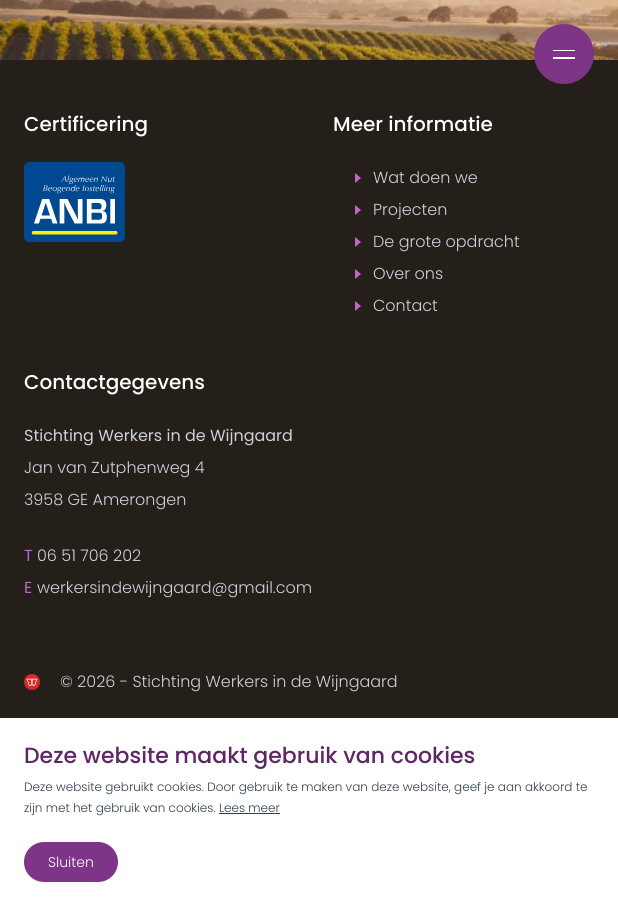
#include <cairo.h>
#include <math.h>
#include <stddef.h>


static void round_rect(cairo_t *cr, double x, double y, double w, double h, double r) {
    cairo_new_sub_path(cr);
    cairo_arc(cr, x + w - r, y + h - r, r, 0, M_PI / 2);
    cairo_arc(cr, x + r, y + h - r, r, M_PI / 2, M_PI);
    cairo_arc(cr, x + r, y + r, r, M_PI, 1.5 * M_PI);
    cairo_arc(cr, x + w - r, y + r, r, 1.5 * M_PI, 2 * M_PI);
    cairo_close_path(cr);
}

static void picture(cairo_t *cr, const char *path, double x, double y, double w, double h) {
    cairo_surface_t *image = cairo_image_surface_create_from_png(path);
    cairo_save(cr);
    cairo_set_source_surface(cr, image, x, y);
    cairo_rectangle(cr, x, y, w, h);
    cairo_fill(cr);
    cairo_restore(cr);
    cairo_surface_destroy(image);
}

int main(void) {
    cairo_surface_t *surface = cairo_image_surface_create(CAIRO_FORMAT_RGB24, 618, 906);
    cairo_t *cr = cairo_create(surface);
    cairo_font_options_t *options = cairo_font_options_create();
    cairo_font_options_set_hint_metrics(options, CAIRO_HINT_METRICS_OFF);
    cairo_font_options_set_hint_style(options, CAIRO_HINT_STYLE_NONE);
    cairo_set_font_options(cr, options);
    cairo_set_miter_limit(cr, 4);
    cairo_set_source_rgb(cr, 1, 1, 1);
    cairo_paint(cr);
    picture(cr, "img1.png", 0, 0, 618, 60);
    cairo_set_source_rgb(cr, 0.141, 0.122, 0.098);
    cairo_rectangle(cr, 0, 60, 618, 658);
    cairo_fill(cr);
    cairo_set_source_rgb(cr, 0.494, 0.208, 0.529);
    cairo_arc(cr, 564, 54, 30, 0, 2 * M_PI);
    cairo_fill(cr);
    cairo_set_source_rgb(cr, 1, 1, 1);
    cairo_rectangle(cr, 553, 50, 22, 1);
    cairo_fill(cr);
    cairo_rectangle(cr, 553, 57, 22, 2);
    cairo_fill(cr);
    cairo_select_font_face(cr, "Poppins Medium", CAIRO_FONT_SLANT_NORMAL, CAIRO_FONT_WEIGHT_NORMAL);
    cairo_set_font_size(cr, 20);
    cairo_move_to(cr, 24, 131);
    cairo_show_text(cr, "Certificering");
    picture(cr, "img2.png", 24, 162, 101, 80);
    cairo_move_to(cr, 333, 131);
    cairo_show_text(cr, "Meer informatie");
    cairo_set_source_rgb(cr, 0.737, 0.404, 0.78);
    cairo_new_path(cr);
    cairo_move_to(cr, 355, 183);
    cairo_line_to(cr, 355, 173);
    cairo_line_to(cr, 361, 178);
    cairo_close_path(cr);
    cairo_fill(cr);
    cairo_select_font_face(cr, "Poppins Light", CAIRO_FONT_SLANT_NORMAL, CAIRO_FONT_WEIGHT_NORMAL);
    cairo_set_font_size(cr, 16);
    cairo_set_source_rgb(cr, 0.796, 0.824, 0.851);
    cairo_move_to(cr, 373, 183);
    cairo_show_text(cr, "Wat doen we");
    cairo_set_source_rgb(cr, 0.737, 0.404, 0.78);
    cairo_new_path(cr);
    cairo_move_to(cr, 355, 215);
    cairo_line_to(cr, 355, 205);
    cairo_line_to(cr, 361, 210);
    cairo_close_path(cr);
    cairo_fill(cr);
    cairo_set_source_rgb(cr, 0.796, 0.824, 0.851);
    cairo_move_to(cr, 373, 215);
    cairo_show_text(cr, "Projecten");
    cairo_set_source_rgb(cr, 0.737, 0.404, 0.78);
    cairo_new_path(cr);
    cairo_move_to(cr, 355, 247);
    cairo_line_to(cr, 355, 237);
    cairo_line_to(cr, 361, 242);
    cairo_close_path(cr);
    cairo_fill(cr);
    cairo_set_source_rgb(cr, 0.796, 0.824, 0.851);
    cairo_move_to(cr, 373, 247);
    cairo_show_text(cr, "De grote opdracht");
    cairo_set_source_rgb(cr, 0.737, 0.404, 0.78);
    cairo_new_path(cr);
    cairo_move_to(cr, 355, 279);
    cairo_line_to(cr, 355, 269);
    cairo_line_to(cr, 361, 274);
    cairo_close_path(cr);
    cairo_fill(cr);
    cairo_set_source_rgb(cr, 0.796, 0.824, 0.851);
    cairo_move_to(cr, 373, 279);
    cairo_show_text(cr, "Over ons");
    cairo_set_source_rgb(cr, 0.737, 0.404, 0.78);
    cairo_new_path(cr);
    cairo_move_to(cr, 355, 311);
    cairo_line_to(cr, 355, 301);
    cairo_line_to(cr, 361, 306);
    cairo_close_path(cr);
    cairo_fill(cr);
    cairo_set_source_rgb(cr, 0.796, 0.824, 0.851);
    cairo_move_to(cr, 373, 311);
    cairo_show_text(cr, "Contact");
    cairo_select_font_face(cr, "Poppins Medium", CAIRO_FONT_SLANT_NORMAL, CAIRO_FONT_WEIGHT_NORMAL);
    cairo_set_font_size(cr, 20);
    cairo_set_source_rgb(cr, 1, 1, 1);
    cairo_move_to(cr, 24, 389);
    cairo_show_text(cr, "Contactgegevens");
    cairo_select_font_face(cr, "Poppins", CAIRO_FONT_SLANT_NORMAL, CAIRO_FONT_WEIGHT_NORMAL);
    cairo_set_font_size(cr, 16);
    cairo_set_source_rgb(cr, 0.796, 0.824, 0.851);
    cairo_move_to(cr, 24, 441);
    cairo_show_text(cr, "Stichting Werkers in de Wijngaard");
    cairo_select_font_face(cr, "Poppins Light", CAIRO_FONT_SLANT_NORMAL, CAIRO_FONT_WEIGHT_NORMAL);
    cairo_move_to(cr, 24, 473);
    cairo_show_text(cr, "Jan van Zutphenweg 4");
    cairo_move_to(cr, 24, 505);
    cairo_show_text(cr, "3958 GE Amerongen");
    cairo_select_font_face(cr, "Poppins", CAIRO_FONT_SLANT_NORMAL, CAIRO_FONT_WEIGHT_NORMAL);
    cairo_set_source_rgb(cr, 0.737, 0.404, 0.78);
    cairo_move_to(cr, 24, 561);
    cairo_show_text(cr, "T");
    cairo_select_font_face(cr, "Poppins Light", CAIRO_FONT_SLANT_NORMAL, CAIRO_FONT_WEIGHT_NORMAL);
    cairo_set_source_rgb(cr, 0.796, 0.824, 0.851);
    cairo_move_to(cr, 37, 561);
    cairo_show_text(cr, "06 51 706 202");
    cairo_select_font_face(cr, "Poppins", CAIRO_FONT_SLANT_NORMAL, CAIRO_FONT_WEIGHT_NORMAL);
    cairo_set_source_rgb(cr, 0.737, 0.404, 0.78);
    cairo_move_to(cr, 24, 593);
    cairo_show_text(cr, "E");
    cairo_select_font_face(cr, "Poppins Light", CAIRO_FONT_SLANT_NORMAL, CAIRO_FONT_WEIGHT_NORMAL);
    cairo_set_source_rgb(cr, 0.796, 0.824, 0.851);
    cairo_move_to(cr, 37, 593);
    cairo_show_text(cr, "werkersindewijngaard@gmail.com");
    picture(cr, "img3.png", 24, 674, 16, 16);
    cairo_move_to(cr, 60, 687);
    cairo_show_text(cr, "© 2026 - Stichting Werkers in de Wijngaard");
    cairo_select_font_face(cr, "Poppins Medium", CAIRO_FONT_SLANT_NORMAL, CAIRO_FONT_WEIGHT_NORMAL);
    cairo_set_font_size(cr, 22);
    cairo_set_source_rgb(cr, 0.369, 0.149, 0.396);
    cairo_move_to(cr, 24, 763);
    cairo_show_text(cr, "Deze website maakt gebruik van cookies");
    cairo_select_font_face(cr, "Poppins Light", CAIRO_FONT_SLANT_NORMAL, CAIRO_FONT_WEIGHT_NORMAL);
    cairo_set_font_size(cr, 12);
    cairo_set_source_rgb(cr, 0.196, 0.247, 0.294);
    cairo_move_to(cr, 24, 791);
    cairo_show_text(cr, "Deze website gebruikt cookies. Door gebruik te maken van deze website, geef je aan akkoord te");
    cairo_move_to(cr, 24, 812);
    cairo_show_text(cr, "zijn met het gebruik van cookies. Lees meer");
    cairo_rectangle(cr, 219, 813, 61, 1);
    cairo_fill(cr);
    cairo_set_source_rgb(cr, 0.494, 0.208, 0.529);
    round_rect(cr, 24, 842, 94, 40, 20);
    cairo_fill(cr);
    cairo_set_font_size(cr, 14);
    cairo_set_source_rgb(cr, 1, 1, 1);
    cairo_move_to(cr, 48, 867);
    cairo_show_text(cr, "Sluiten");
    cairo_surface_write_to_png(surface, "page.png");
    cairo_font_options_destroy(options);
    cairo_destroy(cr);
    cairo_surface_destroy(surface);
    return 0;
}
